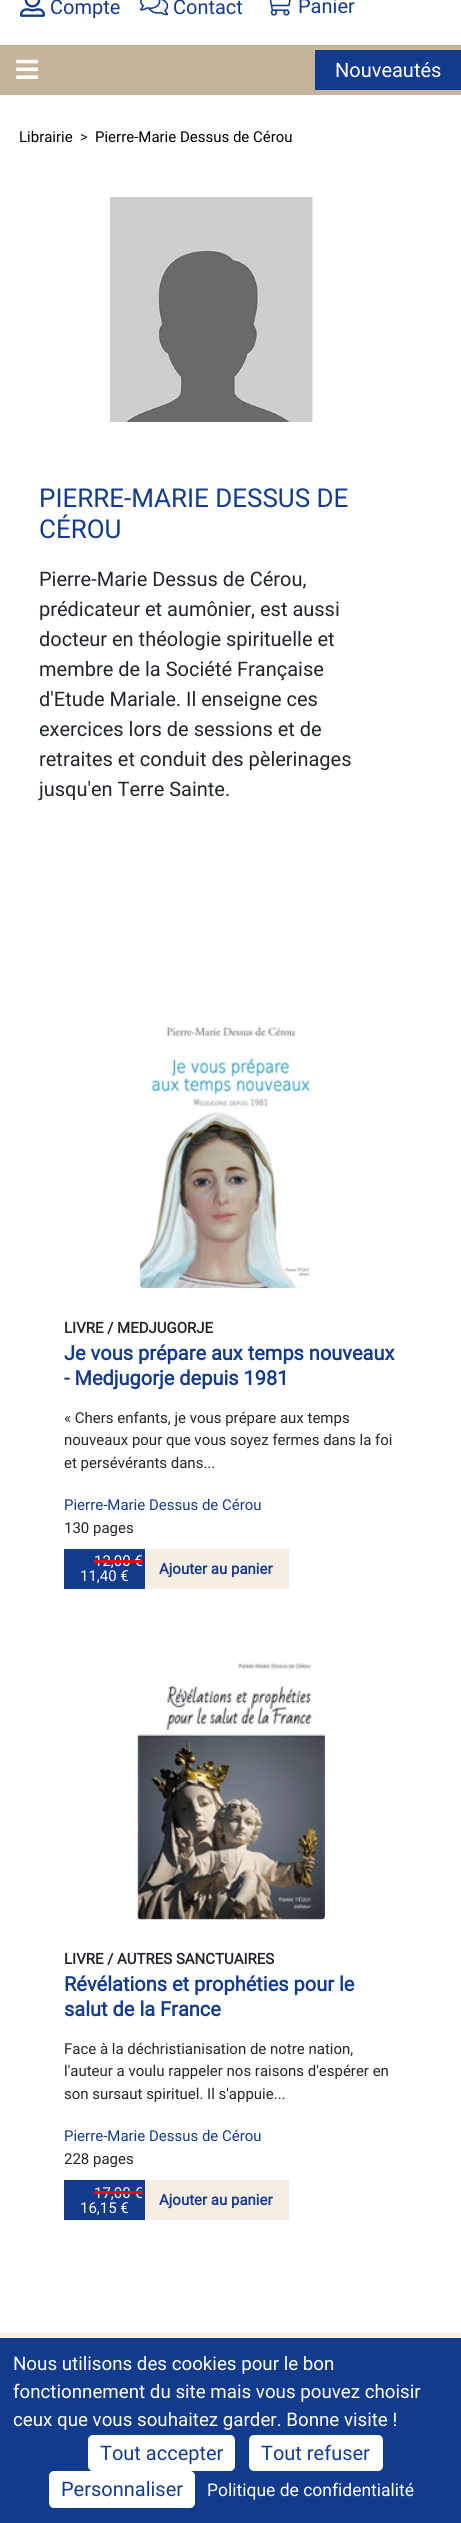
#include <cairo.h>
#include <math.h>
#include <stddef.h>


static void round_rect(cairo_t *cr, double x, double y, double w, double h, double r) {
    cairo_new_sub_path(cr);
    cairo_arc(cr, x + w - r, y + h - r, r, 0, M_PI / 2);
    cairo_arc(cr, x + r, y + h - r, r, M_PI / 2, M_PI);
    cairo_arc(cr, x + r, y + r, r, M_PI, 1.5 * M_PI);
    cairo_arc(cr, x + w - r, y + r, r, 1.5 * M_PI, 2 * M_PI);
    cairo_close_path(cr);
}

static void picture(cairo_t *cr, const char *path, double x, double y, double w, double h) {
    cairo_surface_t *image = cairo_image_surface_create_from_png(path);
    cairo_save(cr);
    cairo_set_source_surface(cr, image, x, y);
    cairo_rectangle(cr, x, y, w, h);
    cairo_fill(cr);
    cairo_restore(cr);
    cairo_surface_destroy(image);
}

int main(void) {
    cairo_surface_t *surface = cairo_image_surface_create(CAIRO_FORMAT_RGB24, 461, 2523);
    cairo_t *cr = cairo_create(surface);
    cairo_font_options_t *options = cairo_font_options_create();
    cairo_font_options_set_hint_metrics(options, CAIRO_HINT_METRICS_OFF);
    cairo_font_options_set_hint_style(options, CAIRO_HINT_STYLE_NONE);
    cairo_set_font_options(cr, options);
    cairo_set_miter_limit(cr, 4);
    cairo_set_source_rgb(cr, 1, 1, 1);
    cairo_paint(cr);
    picture(cr, "img1.png", 20, 0, 25, 17);
    cairo_select_font_face(cr, "Roboto", CAIRO_FONT_SLANT_NORMAL, CAIRO_FONT_WEIGHT_NORMAL);
    cairo_set_font_size(cr, 20);
    cairo_set_source_rgb(cr, 0.075, 0.231, 0.553);
    cairo_move_to(cr, 50, 14);
    cairo_show_text(cr, "Compte");
    picture(cr, "img2.png", 140, 0, 29, 16);
    cairo_move_to(cr, 173, 14);
    cairo_show_text(cr, "Contact");
    picture(cr, "img3.png", 269, 0, 22, 16);
    cairo_move_to(cr, 298, 13);
    cairo_show_text(cr, "Panier");
    cairo_set_source_rgb(cr, 0.776, 0.702, 0.612);
    cairo_rectangle(cr, 0, 45, 461, 50);
    cairo_fill(cr);
    picture(cr, "img4.png", 16, 59, 23, 20);
    cairo_set_source_rgb(cr, 0.075, 0.231, 0.553);
    cairo_rectangle(cr, 315, 50, 146, 40);
    cairo_fill(cr);
    cairo_set_source_rgb(cr, 1, 1, 1);
    cairo_move_to(cr, 335, 77);
    cairo_show_text(cr, "Nouveautés");
    cairo_set_font_size(cr, 15);
    cairo_set_source_rgb(cr, 0, 0, 0);
    cairo_move_to(cr, 19, 142);
    cairo_show_text(cr, "Librairie");
    cairo_set_source_rgb(cr, 0.129, 0.145, 0.161);
    cairo_move_to(cr, 80, 142);
    cairo_show_text(cr, ">");
    cairo_set_source_rgb(cr, 0, 0, 0);
    cairo_move_to(cr, 95, 142);
    cairo_show_text(cr, "Pierre-Marie Dessus de Cérou");
    picture(cr, "img5.png", 110, 197, 203, 225);
    cairo_set_font_size(cr, 26);
    cairo_set_source_rgb(cr, 0.075, 0.231, 0.553);
    cairo_move_to(cr, 39, 507);
    cairo_show_text(cr, "PIERRE-MARIE DESSUS DE");
    cairo_move_to(cr, 39, 538);
    cairo_show_text(cr, "CÉROU");
    cairo_set_font_size(cr, 20);
    cairo_set_source_rgb(cr, 0.129, 0.145, 0.161);
    cairo_move_to(cr, 39, 586);
    cairo_show_text(cr, "Pierre-Marie Dessus de Cérou,");
    cairo_move_to(cr, 39, 616);
    cairo_show_text(cr, "prédicateur et aumônier, est aussi");
    cairo_move_to(cr, 39, 646);
    cairo_show_text(cr, "docteur en théologie spirituelle et");
    cairo_move_to(cr, 39, 676);
    cairo_show_text(cr, "membre de la Société Française");
    cairo_move_to(cr, 39, 706);
    cairo_show_text(cr, "d'Etude Mariale. Il enseigne ces");
    cairo_move_to(cr, 39, 736);
    cairo_show_text(cr, "exercices lors de sessions et de");
    cairo_move_to(cr, 39, 766);
    cairo_show_text(cr, "retraites et conduit des pèlerinages");
    cairo_move_to(cr, 39, 796);
    cairo_show_text(cr, "jusqu'en Terre Sainte.");
    picture(cr, "img6.png", 140, 1026, 173, 263);
    cairo_select_font_face(cr, "Roboto", CAIRO_FONT_SLANT_NORMAL, CAIRO_FONT_WEIGHT_BOLD);
    cairo_set_font_size(cr, 15);
    cairo_move_to(cr, 64, 1333);
    cairo_show_text(cr, "LIVRE / MEDJUGORJE");
    cairo_set_font_size(cr, 20);
    cairo_set_source_rgb(cr, 0.075, 0.231, 0.553);
    cairo_move_to(cr, 64, 1360);
    cairo_show_text(cr, "Je vous prépare aux temps nouveaux");
    cairo_move_to(cr, 64, 1385);
    cairo_show_text(cr, "- Medjugorje depuis 1981");
    cairo_select_font_face(cr, "Roboto", CAIRO_FONT_SLANT_NORMAL, CAIRO_FONT_WEIGHT_NORMAL);
    cairo_set_font_size(cr, 15);
    cairo_set_source_rgb(cr, 0.129, 0.145, 0.161);
    cairo_move_to(cr, 64, 1423);
    cairo_show_text(cr, "« Chers enfants, je vous prépare aux temps");
    cairo_move_to(cr, 64, 1445);
    cairo_show_text(cr, "nouveaux pour que vous soyez fermes dans la foi");
    cairo_move_to(cr, 64, 1468);
    cairo_show_text(cr, "et persévérants dans...");
    cairo_set_source_rgb(cr, 0.075, 0.231, 0.553);
    cairo_move_to(cr, 64, 1510);
    cairo_show_text(cr, "Pierre-Marie Dessus de Cérou");
    cairo_set_source_rgb(cr, 0.129, 0.145, 0.161);
    cairo_move_to(cr, 64, 1533);
    cairo_show_text(cr, "130 pages");
    cairo_set_source_rgb(cr, 0.075, 0.231, 0.553);
    cairo_rectangle(cr, 64, 1549, 81, 40);
    cairo_fill(cr);
    cairo_set_source_rgb(cr, 1, 1, 1);
    cairo_move_to(cr, 94, 1566);
    cairo_show_text(cr, "12,00 €");
    cairo_set_source_rgb(cr, 1, 0, 0);
    cairo_rectangle(cr, 94, 1560, 49, 3);
    cairo_fill(cr);
    cairo_set_source_rgb(cr, 1, 1, 1);
    cairo_move_to(cr, 80, 1581);
    cairo_show_text(cr, "11,40 €");
    cairo_set_source_rgb(cr, 0.961, 0.929, 0.894);
    cairo_rectangle(cr, 145, 1549, 144, 40);
    cairo_fill(cr);
    cairo_select_font_face(cr, "Roboto", CAIRO_FONT_SLANT_NORMAL, CAIRO_FONT_WEIGHT_BOLD);
    cairo_set_source_rgb(cr, 0.075, 0.231, 0.553);
    cairo_move_to(cr, 159, 1574);
    cairo_show_text(cr, "Ajouter au panier");
    picture(cr, "img7.png", 137, 1662, 188, 258);
    cairo_set_source_rgb(cr, 0.129, 0.145, 0.161);
    cairo_move_to(cr, 64, 1964);
    cairo_show_text(cr, "LIVRE / AUTRES SANCTUAIRES");
    cairo_set_font_size(cr, 20);
    cairo_set_source_rgb(cr, 0.075, 0.231, 0.553);
    cairo_move_to(cr, 64, 1991);
    cairo_show_text(cr, "Révélations et prophéties pour le");
    cairo_move_to(cr, 64, 2016);
    cairo_show_text(cr, "salut de la France");
    cairo_select_font_face(cr, "Roboto", CAIRO_FONT_SLANT_NORMAL, CAIRO_FONT_WEIGHT_NORMAL);
    cairo_set_font_size(cr, 15);
    cairo_set_source_rgb(cr, 0.129, 0.145, 0.161);
    cairo_move_to(cr, 64, 2054);
    cairo_show_text(cr, "Face à la déchristianisation de notre nation,");
    cairo_move_to(cr, 64, 2076);
    cairo_show_text(cr, "l'auteur a voulu rappeler nos raisons d'espérer en");
    cairo_move_to(cr, 64, 2099);
    cairo_show_text(cr, "son sursaut spirituel. Il s'appuie...");
    cairo_set_source_rgb(cr, 0.075, 0.231, 0.553);
    cairo_move_to(cr, 64, 2141);
    cairo_show_text(cr, "Pierre-Marie Dessus de Cérou");
    cairo_set_source_rgb(cr, 0.129, 0.145, 0.161);
    cairo_move_to(cr, 64, 2164);
    cairo_show_text(cr, "228 pages");
    cairo_set_source_rgb(cr, 0.075, 0.231, 0.553);
    cairo_rectangle(cr, 64, 2180, 81, 40);
    cairo_fill(cr);
    cairo_set_source_rgb(cr, 1, 1, 1);
    cairo_move_to(cr, 94, 2198);
    cairo_show_text(cr, "17,00 €");
    cairo_set_source_rgb(cr, 1, 0, 0);
    cairo_rectangle(cr, 94, 2191, 49, 3);
    cairo_fill(cr);
    cairo_set_source_rgb(cr, 1, 1, 1);
    cairo_move_to(cr, 80, 2213);
    cairo_show_text(cr, "16,15 €");
    cairo_set_source_rgb(cr, 0.961, 0.929, 0.894);
    cairo_rectangle(cr, 145, 2180, 144, 40);
    cairo_fill(cr);
    cairo_select_font_face(cr, "Roboto", CAIRO_FONT_SLANT_NORMAL, CAIRO_FONT_WEIGHT_BOLD);
    cairo_set_source_rgb(cr, 0.075, 0.231, 0.553);
    cairo_move_to(cr, 159, 2205);
    cairo_show_text(cr, "Ajouter au panier");
    cairo_set_source_rgb(cr, 0.961, 0.929, 0.894);
    cairo_rectangle(cr, 0, 2333, 461, 5);
    cairo_fill(cr);
    cairo_set_source_rgb(cr, 0.075, 0.231, 0.553);
    cairo_rectangle(cr, 0, 2338, 461, 185);
    cairo_fill(cr);
    cairo_select_font_face(cr, "Roboto", CAIRO_FONT_SLANT_NORMAL, CAIRO_FONT_WEIGHT_NORMAL);
    cairo_set_font_size(cr, 18.75);
    cairo_set_source_rgb(cr, 1, 1, 1);
    cairo_move_to(cr, 13, 2370);
    cairo_show_text(cr, "Nous utilisons des cookies pour le bon");
    cairo_move_to(cr, 13, 2398);
    cairo_show_text(cr, "fonctionnement du site mais vous pouvez choisir");
    cairo_move_to(cr, 13, 2426);
    cairo_show_text(cr, "ceux que vous souhaitez garder. Bonne visite !");
    round_rect(cr, 88, 2435, 147, 36, 5);
    cairo_fill(cr);
    cairo_set_font_size(cr, 20);
    cairo_set_source_rgb(cr, 0.075, 0.231, 0.553);
    cairo_move_to(cr, 100, 2460);
    cairo_show_text(cr, "Tout accepter");
    cairo_set_source_rgb(cr, 1, 1, 1);
    round_rect(cr, 249, 2435, 134, 36, 5);
    cairo_fill(cr);
    cairo_set_source_rgb(cr, 0.075, 0.231, 0.553);
    cairo_move_to(cr, 261, 2460);
    cairo_show_text(cr, "Tout refuser");
    cairo_set_source_rgb(cr, 1, 1, 1);
    round_rect(cr, 49, 2471, 146, 37, 5);
    cairo_fill(cr);
    cairo_set_source_rgb(cr, 0.075, 0.231, 0.553);
    cairo_move_to(cr, 61, 2496);
    cairo_show_text(cr, "Personnaliser");
    cairo_set_font_size(cr, 17.5);
    cairo_set_source_rgb(cr, 1, 1, 1);
    cairo_move_to(cr, 207, 2496);
    cairo_show_text(cr, "Politique de confidentialité");
    cairo_surface_write_to_png(surface, "page.png");
    cairo_font_options_destroy(options);
    cairo_destroy(cr);
    cairo_surface_destroy(surface);
    return 0;
}
